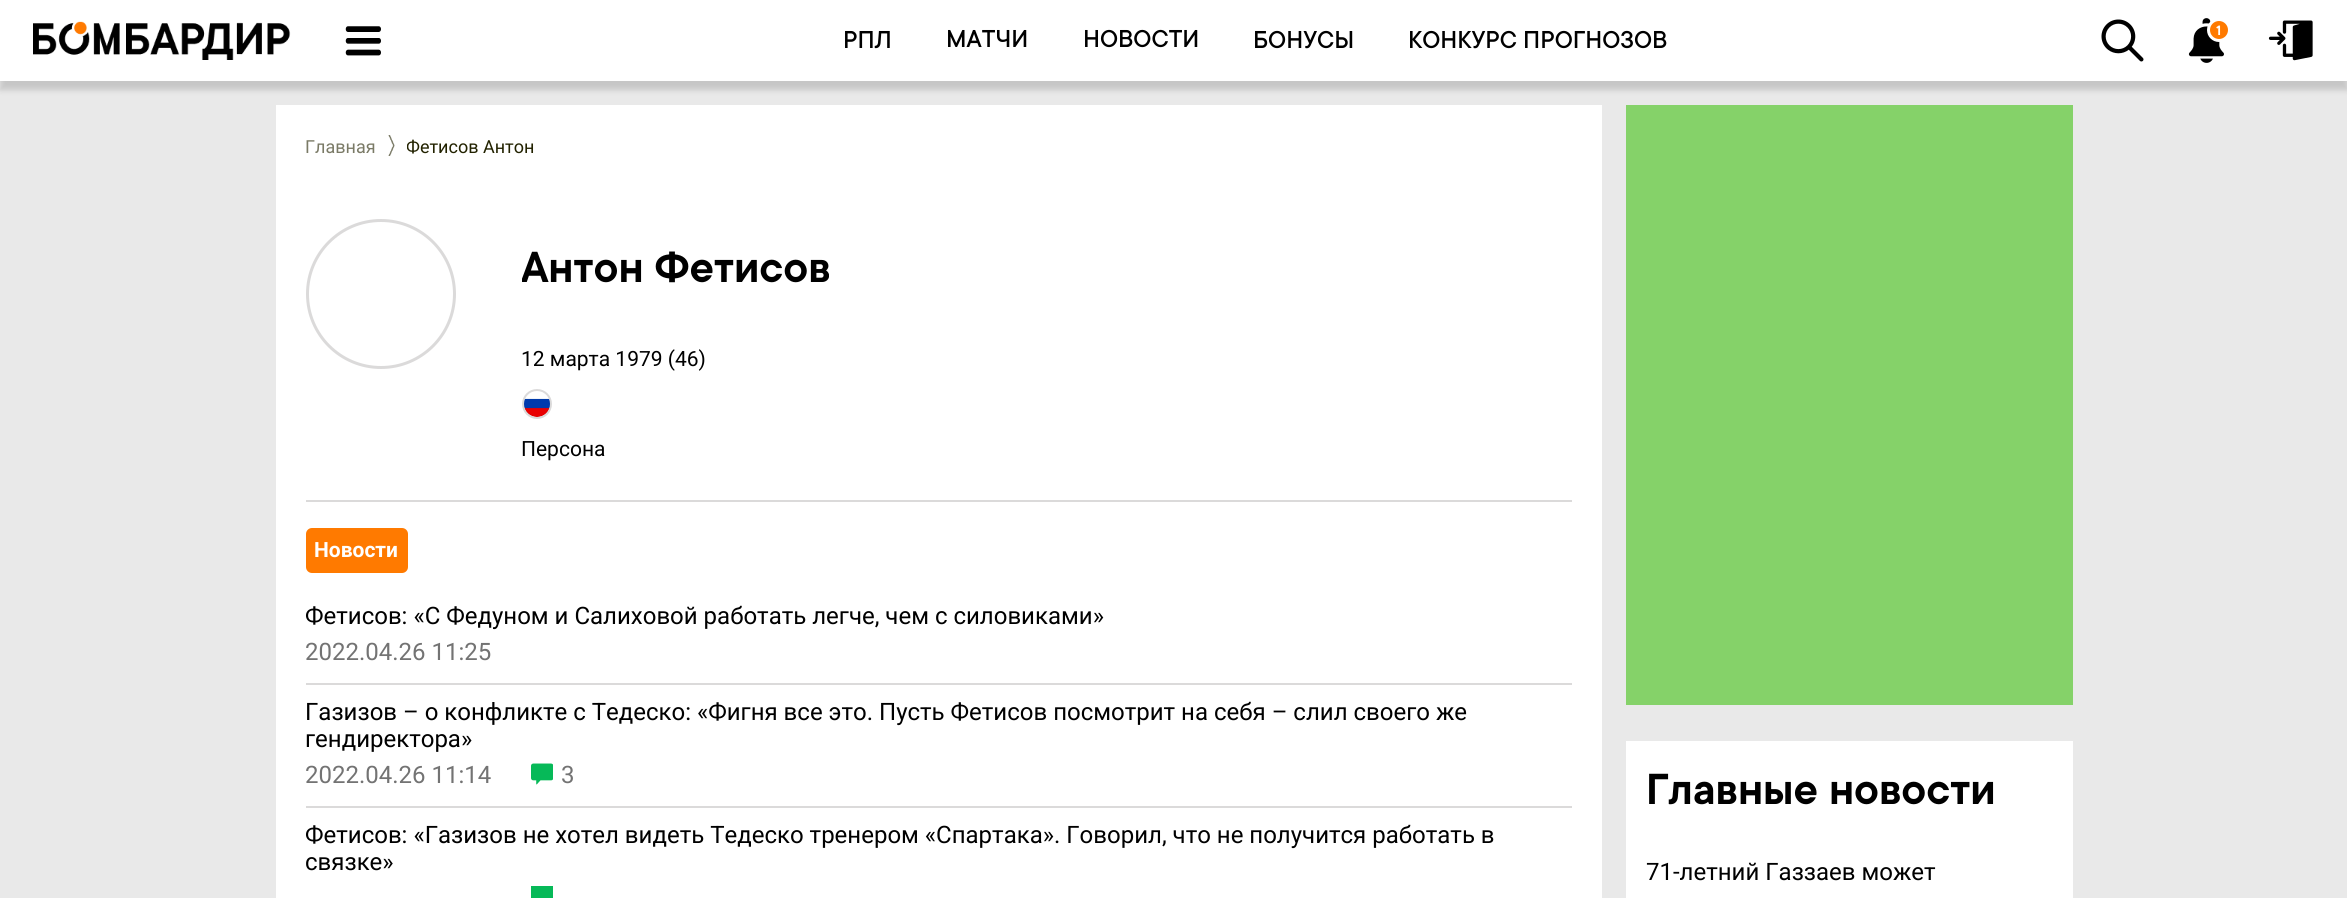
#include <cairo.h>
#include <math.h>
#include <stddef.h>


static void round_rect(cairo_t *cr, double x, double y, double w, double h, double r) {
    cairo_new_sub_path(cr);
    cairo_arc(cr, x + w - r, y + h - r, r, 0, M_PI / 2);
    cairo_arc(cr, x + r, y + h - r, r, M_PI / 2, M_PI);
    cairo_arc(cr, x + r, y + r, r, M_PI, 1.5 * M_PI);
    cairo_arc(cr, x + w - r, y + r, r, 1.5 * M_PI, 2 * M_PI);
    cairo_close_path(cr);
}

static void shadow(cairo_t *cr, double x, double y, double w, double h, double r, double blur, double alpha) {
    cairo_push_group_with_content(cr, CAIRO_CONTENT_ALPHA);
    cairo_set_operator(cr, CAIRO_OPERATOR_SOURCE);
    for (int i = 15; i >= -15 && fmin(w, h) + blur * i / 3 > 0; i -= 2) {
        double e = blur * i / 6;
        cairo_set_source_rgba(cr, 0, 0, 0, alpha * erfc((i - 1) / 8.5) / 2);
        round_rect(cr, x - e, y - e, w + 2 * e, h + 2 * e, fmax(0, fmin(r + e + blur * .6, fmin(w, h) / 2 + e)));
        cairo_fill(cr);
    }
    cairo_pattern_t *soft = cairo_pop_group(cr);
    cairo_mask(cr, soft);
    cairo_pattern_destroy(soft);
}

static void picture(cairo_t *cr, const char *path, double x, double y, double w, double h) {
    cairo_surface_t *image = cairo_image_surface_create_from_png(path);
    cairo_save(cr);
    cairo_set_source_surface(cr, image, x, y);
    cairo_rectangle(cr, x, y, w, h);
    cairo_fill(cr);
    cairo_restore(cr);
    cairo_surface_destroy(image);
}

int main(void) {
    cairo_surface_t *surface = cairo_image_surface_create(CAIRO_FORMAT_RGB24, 2347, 898);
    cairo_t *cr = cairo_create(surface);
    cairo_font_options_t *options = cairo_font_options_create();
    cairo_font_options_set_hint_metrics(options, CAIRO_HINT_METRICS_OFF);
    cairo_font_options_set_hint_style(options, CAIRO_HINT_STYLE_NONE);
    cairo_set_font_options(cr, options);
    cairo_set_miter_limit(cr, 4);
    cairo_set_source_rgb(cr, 0.914, 0.914, 0.914);
    cairo_paint(cr);
    cairo_set_source_rgb(cr, 0, 0, 0);
    shadow(cr, 0, 9, 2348, 81, 0, 3, 0.15);
    cairo_set_source_rgb(cr, 1, 1, 1);
    cairo_rectangle(cr, 0, 0, 2347, 81);
    cairo_fill(cr);
    picture(cr, "img1.png", 33, 21, 258, 39);
    picture(cr, "img2.png", 345, 26, 36, 30);
    cairo_select_font_face(cr, "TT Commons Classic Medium", CAIRO_FONT_SLANT_NORMAL, CAIRO_FONT_WEIGHT_NORMAL);
    cairo_set_font_size(cr, 27);
    cairo_set_source_rgb(cr, 0, 0, 0);
    cairo_move_to(cr, 843, 48);
    cairo_show_text(cr, "РПЛ");
    cairo_move_to(cr, 946, 47);
    cairo_show_text(cr, "МАТЧИ");
    cairo_move_to(cr, 1083, 47);
    cairo_show_text(cr, "НОВОСТИ");
    cairo_move_to(cr, 1253, 48);
    cairo_show_text(cr, "БОНУСЫ");
    cairo_move_to(cr, 1408, 48);
    cairo_show_text(cr, "КОНКУРС ПРОГНОЗОВ");
    picture(cr, "img3.png", 2101, 19, 43, 43);
    picture(cr, "img4.png", 2188, 18, 36, 45);
    cairo_set_source_rgb(cr, 1, 0.478, 0);
    cairo_arc(cr, 2219, 30, 10.5, 0, 2 * M_PI);
    cairo_fill_preserve(cr);
    cairo_set_source_rgb(cr, 1, 1, 1);
    cairo_set_line_width(cr, 3);
    cairo_stroke(cr);
    cairo_select_font_face(cr, "TT Commons Classic SemiBold", CAIRO_FONT_SLANT_NORMAL, CAIRO_FONT_WEIGHT_NORMAL);
    cairo_set_font_size(cr, 15);
    cairo_move_to(cr, 2216, 35);
    cairo_show_text(cr, "1");
    picture(cr, "img5.png", 2268, 20, 45, 41);
    cairo_rectangle(cr, 276, 105, 1326, 793);
    cairo_fill(cr);
    cairo_select_font_face(cr, "Roboto", CAIRO_FONT_SLANT_NORMAL, CAIRO_FONT_WEIGHT_NORMAL);
    cairo_set_font_size(cr, 18);
    cairo_set_source_rgb(cr, 0.478, 0.478, 0.4);
    cairo_move_to(cr, 305, 153);
    cairo_show_text(cr, "Главная");
    picture(cr, "img6.png", 388, 135, 7, 21);
    cairo_save(cr);
    cairo_rectangle(cr, 407, 135, 157, 24);
    cairo_clip(cr);
    cairo_set_source_rgb(cr, 0.133, 0.133, 0);
    cairo_move_to(cr, 406, 153);
    cairo_show_text(cr, "Фетисов Антон");
    cairo_restore(cr);
    cairo_set_source_rgb(cr, 0.859, 0.855, 0.855);
    cairo_rectangle(cr, 306, 500, 1266, 2);
    cairo_fill(cr);
    cairo_arc(cr, 381, 294, 73.5, 0, 2 * M_PI);
    cairo_stroke(cr);
    cairo_save(cr);
    cairo_rectangle(cr, 522, 219, 1050, 260);
    cairo_clip(cr);
    cairo_select_font_face(cr, "TT Commons Classic SemiBold", CAIRO_FONT_SLANT_NORMAL, CAIRO_FONT_WEIGHT_NORMAL);
    cairo_set_font_size(cr, 48);
    cairo_set_source_rgb(cr, 0, 0, 0);
    cairo_move_to(cr, 521, 282);
    cairo_show_text(cr, "Антон Фетисов");
    cairo_restore(cr);
    cairo_set_font_size(cr, 21);
    cairo_set_source_rgb(cr, 0, 0, 0);
    cairo_move_to(cr, 521, 366);
    cairo_show_text(cr, "12 марта 1979 (46)");
    picture(cr, "img7.png", 524, 391, 26, 26);
    cairo_arc(cr, 537, 404, 14, 0, 2 * M_PI);
    cairo_set_source_rgb(cr, 0.859, 0.855, 0.855);
    cairo_set_line_width(cr, 2);
    cairo_stroke(cr);
    cairo_set_source_rgb(cr, 0, 0, 0);
    cairo_move_to(cr, 521, 456);
    cairo_show_text(cr, "Персона");
    cairo_set_source_rgb(cr, 1, 0.478, 0);
    round_rect(cr, 306, 528, 102, 45, 6);
    cairo_fill(cr);
    cairo_select_font_face(cr, "Roboto", CAIRO_FONT_SLANT_NORMAL, CAIRO_FONT_WEIGHT_BOLD);
    cairo_set_source_rgb(cr, 1, 1, 1);
    cairo_move_to(cr, 314, 557);
    cairo_show_text(cr, "Новости");
    cairo_select_font_face(cr, "Roboto", CAIRO_FONT_SLANT_NORMAL, CAIRO_FONT_WEIGHT_NORMAL);
    cairo_set_font_size(cr, 24);
    cairo_set_source_rgb(cr, 0, 0, 0);
    cairo_move_to(cr, 305, 624);
    cairo_show_text(cr, "Фетисов: «С Федуном и Салиховой работать легче, чем с силовиками»");
    cairo_set_source_rgb(cr, 0.451, 0.451, 0.451);
    cairo_move_to(cr, 305, 660);
    cairo_show_text(cr, "2022.04.26 11:25");
    cairo_set_source_rgb(cr, 0.859, 0.855, 0.855);
    cairo_rectangle(cr, 306, 683, 1266, 2);
    cairo_fill(cr);
    cairo_set_source_rgb(cr, 0, 0, 0);
    cairo_move_to(cr, 305, 720);
    cairo_show_text(cr, "Газизов – о конфликте с Тедеско: «Фигня все это. Пусть Фетисов посмотрит на себя – слил своего же");
    cairo_move_to(cr, 305, 747);
    cairo_show_text(cr, "гендиректора»");
    cairo_set_source_rgb(cr, 0.451, 0.451, 0.451);
    cairo_move_to(cr, 305, 783);
    cairo_show_text(cr, "2022.04.26 11:14");
    picture(cr, "img8.png", 531, 763, 22, 22);
    cairo_move_to(cr, 561, 783);
    cairo_show_text(cr, "3");
    cairo_set_source_rgb(cr, 0.859, 0.855, 0.855);
    cairo_rectangle(cr, 306, 806, 1266, 2);
    cairo_fill(cr);
    cairo_set_source_rgb(cr, 0, 0, 0);
    cairo_move_to(cr, 305, 843);
    cairo_show_text(cr, "Фетисов: «Газизов не хотел видеть Тедеско тренером «Спартака». Говорил, что не получится работать в");
    cairo_move_to(cr, 305, 870);
    cairo_show_text(cr, "связке»");
    cairo_set_source_rgb(cr, 0.024, 0.725, 0.345);
    cairo_rectangle(cr, 531, 886, 22, 12);
    cairo_fill(cr);
    cairo_set_source_rgb(cr, 0.522, 0.824, 0.412);
    cairo_rectangle(cr, 1626, 105, 447, 600);
    cairo_fill(cr);
    cairo_set_source_rgb(cr, 1, 1, 1);
    cairo_rectangle(cr, 1626, 741, 447, 157);
    cairo_fill(cr);
    cairo_select_font_face(cr, "TT Commons Classic SemiBold", CAIRO_FONT_SLANT_NORMAL, CAIRO_FONT_WEIGHT_NORMAL);
    cairo_set_font_size(cr, 48);
    cairo_set_source_rgb(cr, 0, 0, 0);
    cairo_move_to(cr, 1646, 804);
    cairo_show_text(cr, "Главные новости");
    cairo_select_font_face(cr, "Roboto", CAIRO_FONT_SLANT_NORMAL, CAIRO_FONT_WEIGHT_NORMAL);
    cairo_set_font_size(cr, 24);
    cairo_move_to(cr, 1646, 880);
    cairo_show_text(cr, "71-летний Газзаев может");
    cairo_surface_write_to_png(surface, "page.png");
    cairo_font_options_destroy(options);
    cairo_destroy(cr);
    cairo_surface_destroy(surface);
    return 0;
}
